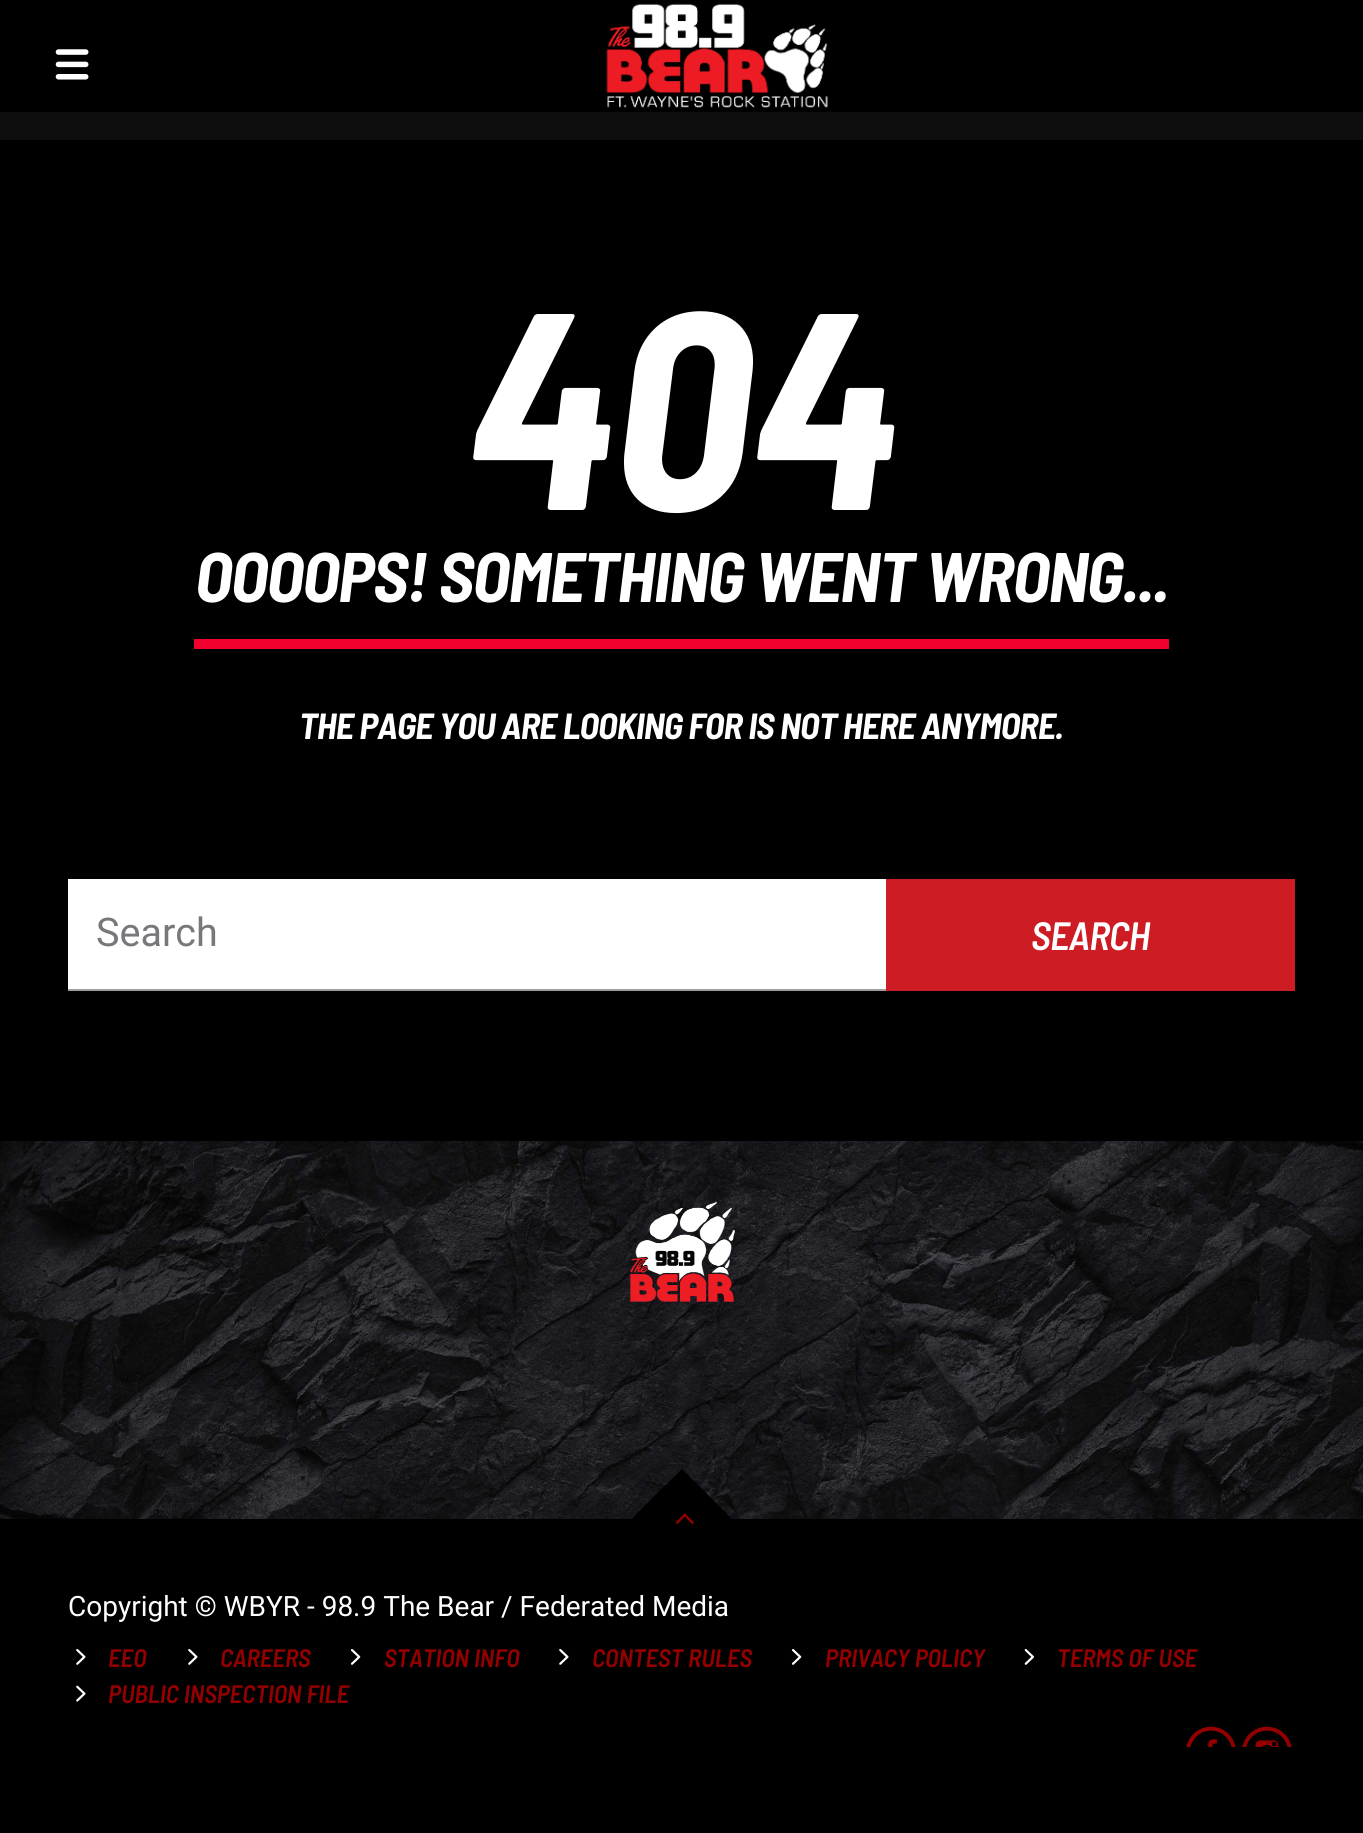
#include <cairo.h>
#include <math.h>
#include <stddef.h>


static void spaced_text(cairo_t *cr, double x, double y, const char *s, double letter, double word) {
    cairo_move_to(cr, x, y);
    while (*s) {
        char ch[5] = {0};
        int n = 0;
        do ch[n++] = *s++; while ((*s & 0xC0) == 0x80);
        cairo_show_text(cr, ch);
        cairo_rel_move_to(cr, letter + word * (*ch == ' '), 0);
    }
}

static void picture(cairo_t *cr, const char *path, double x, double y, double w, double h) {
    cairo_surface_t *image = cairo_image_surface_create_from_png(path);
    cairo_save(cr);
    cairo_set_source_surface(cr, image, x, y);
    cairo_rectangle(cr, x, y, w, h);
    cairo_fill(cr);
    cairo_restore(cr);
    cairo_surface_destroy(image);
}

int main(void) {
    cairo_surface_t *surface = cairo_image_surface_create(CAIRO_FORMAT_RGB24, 1363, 1833);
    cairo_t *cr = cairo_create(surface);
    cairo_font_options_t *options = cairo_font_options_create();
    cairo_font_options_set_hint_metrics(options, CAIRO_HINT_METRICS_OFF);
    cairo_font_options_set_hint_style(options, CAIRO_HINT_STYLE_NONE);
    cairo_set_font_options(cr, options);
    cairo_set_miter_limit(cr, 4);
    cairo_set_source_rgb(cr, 0.055, 0.055, 0.055);
    cairo_paint(cr);
    cairo_set_source_rgb(cr, 0, 0, 0);
    cairo_rectangle(cr, 0, 0, 1363, 112);
    cairo_fill(cr);
    picture(cr, "img1.png", 55, 49, 34, 31);
    picture(cr, "img2.png", 606, 3, 222, 105);
    cairo_rectangle(cr, 0, 140, 1363, 1001);
    cairo_fill(cr);
    cairo_set_source_rgb(cr, 0.949, 0, 0.18);
    cairo_rectangle(cr, 194, 639, 975, 10);
    cairo_fill(cr);
    cairo_select_font_face(cr, "Barlow Semi Condensed", CAIRO_FONT_SLANT_ITALIC, CAIRO_FONT_WEIGHT_BOLD);
    cairo_set_font_size(cr, 280);
    cairo_set_source_rgb(cr, 1, 1, 1);
    spaced_text(cr, 466, 510, "404", -1.4, 0);
    cairo_set_font_size(cr, 70);
    spaced_text(cr, 195, 602, "OOOOPS! SOMETHING WENT WRONG...", -1.4, 0);
    cairo_set_font_size(cr, 36.4);
    spaced_text(cr, 299, 739, "THE PAGE YOU ARE LOOKING FOR IS NOT HERE ANYMORE.", -0.75, 0);
    cairo_rectangle(cr, 68, 879, 818, 110);
    cairo_fill(cr);
    cairo_set_source_rgb(cr, 0.62, 0.62, 0.62);
    cairo_rectangle(cr, 68, 989, 818, 2);
    cairo_fill(cr);
    cairo_select_font_face(cr, "Roboto", CAIRO_FONT_SLANT_NORMAL, CAIRO_FONT_WEIGHT_NORMAL);
    cairo_set_font_size(cr, 39.5);
    cairo_set_source_rgb(cr, 0.467, 0.467, 0.486);
    cairo_move_to(cr, 96, 946);
    cairo_show_text(cr, "Search");
    cairo_set_source_rgb(cr, 0.804, 0.11, 0.141);
    cairo_rectangle(cr, 886, 879, 409, 112);
    cairo_fill(cr);
    cairo_select_font_face(cr, "Barlow Semi Condensed SemiBold", CAIRO_FONT_SLANT_ITALIC, CAIRO_FONT_WEIGHT_NORMAL);
    cairo_set_source_rgb(cr, 1, 1, 1);
    spaced_text(cr, 1031, 950, "SEARCH", -0.75, 0);
    picture(cr, "img3.png", 0, 1141, 1363, 378);
    picture(cr, "img4.png", 630, 1201, 105, 101);
    cairo_set_source_rgb(cr, 0, 0, 0);
    cairo_rectangle(cr, 0, 1519, 1363, 314);
    cairo_fill(cr);
    cairo_new_path(cr);
    cairo_move_to(cr, 632, 1518);
    cairo_line_to(cr, 682, 1469);
    cairo_line_to(cr, 731, 1518);
    cairo_line_to(cr, 682, 1568);
    cairo_close_path(cr);
    cairo_fill(cr);
    picture(cr, "img5.png", 676, 1513, 18, 11);
    cairo_select_font_face(cr, "Roboto", CAIRO_FONT_SLANT_NORMAL, CAIRO_FONT_WEIGHT_NORMAL);
    cairo_set_font_size(cr, 28);
    cairo_set_source_rgb(cr, 1, 1, 1);
    cairo_move_to(cr, 68, 1616);
    cairo_show_text(cr, "Copyright © WBYR - 98.9 The Bear / Federated Media");
    picture(cr, "img6.png", 76, 1649, 10, 16);
    cairo_select_font_face(cr, "Barlow Semi Condensed SemiBold", CAIRO_FONT_SLANT_ITALIC, CAIRO_FONT_WEIGHT_NORMAL);
    cairo_set_font_size(cr, 25.25);
    cairo_set_source_rgb(cr, 0.58, 0, 0);
    cairo_move_to(cr, 108, 1667);
    cairo_show_text(cr, "EEO");
    picture(cr, "img6.png", 188, 1649, 10, 16);
    cairo_move_to(cr, 220, 1667);
    cairo_show_text(cr, "CAREERS");
    picture(cr, "img7.png", 350, 1649, 11, 16);
    cairo_move_to(cr, 384, 1667);
    cairo_show_text(cr, "STATION INFO");
    picture(cr, "img6.png", 559, 1649, 10, 16);
    cairo_move_to(cr, 592, 1667);
    cairo_show_text(cr, "CONTEST RULES");
    picture(cr, "img7.png", 791, 1649, 11, 16);
    cairo_move_to(cr, 825, 1667);
    cairo_show_text(cr, "PRIVACY POLICY");
    picture(cr, "img8.png", 1024, 1649, 10, 16);
    cairo_move_to(cr, 1057, 1667);
    cairo_show_text(cr, "TERMS OF USE");
    picture(cr, "img9.png", 76, 1685, 10, 17);
    cairo_move_to(cr, 108, 1703);
    cairo_show_text(cr, "PUBLIC INSPECTION FILE");
    picture(cr, "img10.png", 1186, 1726, 50, 21);
    picture(cr, "img11.png", 1242, 1726, 50, 21);
    cairo_surface_write_to_png(surface, "page.png");
    cairo_font_options_destroy(options);
    cairo_destroy(cr);
    cairo_surface_destroy(surface);
    return 0;
}
